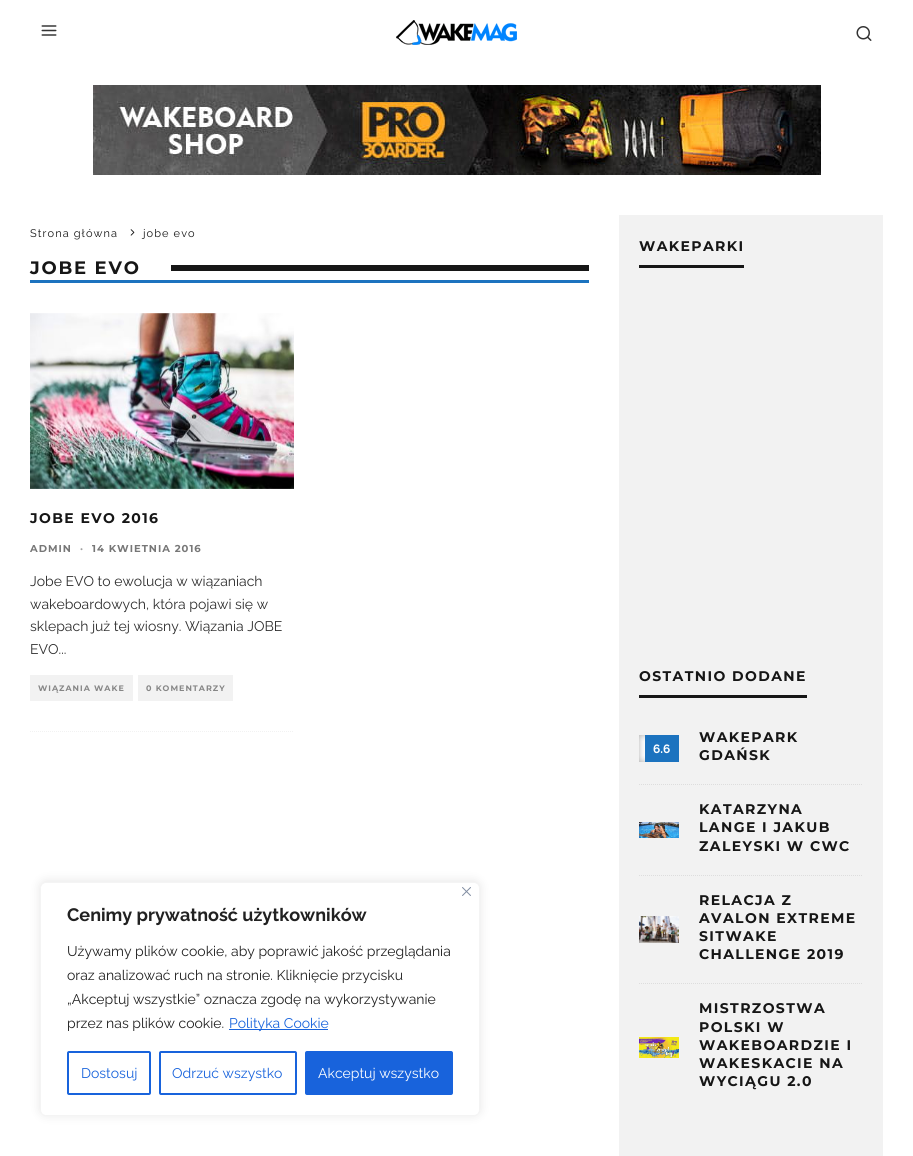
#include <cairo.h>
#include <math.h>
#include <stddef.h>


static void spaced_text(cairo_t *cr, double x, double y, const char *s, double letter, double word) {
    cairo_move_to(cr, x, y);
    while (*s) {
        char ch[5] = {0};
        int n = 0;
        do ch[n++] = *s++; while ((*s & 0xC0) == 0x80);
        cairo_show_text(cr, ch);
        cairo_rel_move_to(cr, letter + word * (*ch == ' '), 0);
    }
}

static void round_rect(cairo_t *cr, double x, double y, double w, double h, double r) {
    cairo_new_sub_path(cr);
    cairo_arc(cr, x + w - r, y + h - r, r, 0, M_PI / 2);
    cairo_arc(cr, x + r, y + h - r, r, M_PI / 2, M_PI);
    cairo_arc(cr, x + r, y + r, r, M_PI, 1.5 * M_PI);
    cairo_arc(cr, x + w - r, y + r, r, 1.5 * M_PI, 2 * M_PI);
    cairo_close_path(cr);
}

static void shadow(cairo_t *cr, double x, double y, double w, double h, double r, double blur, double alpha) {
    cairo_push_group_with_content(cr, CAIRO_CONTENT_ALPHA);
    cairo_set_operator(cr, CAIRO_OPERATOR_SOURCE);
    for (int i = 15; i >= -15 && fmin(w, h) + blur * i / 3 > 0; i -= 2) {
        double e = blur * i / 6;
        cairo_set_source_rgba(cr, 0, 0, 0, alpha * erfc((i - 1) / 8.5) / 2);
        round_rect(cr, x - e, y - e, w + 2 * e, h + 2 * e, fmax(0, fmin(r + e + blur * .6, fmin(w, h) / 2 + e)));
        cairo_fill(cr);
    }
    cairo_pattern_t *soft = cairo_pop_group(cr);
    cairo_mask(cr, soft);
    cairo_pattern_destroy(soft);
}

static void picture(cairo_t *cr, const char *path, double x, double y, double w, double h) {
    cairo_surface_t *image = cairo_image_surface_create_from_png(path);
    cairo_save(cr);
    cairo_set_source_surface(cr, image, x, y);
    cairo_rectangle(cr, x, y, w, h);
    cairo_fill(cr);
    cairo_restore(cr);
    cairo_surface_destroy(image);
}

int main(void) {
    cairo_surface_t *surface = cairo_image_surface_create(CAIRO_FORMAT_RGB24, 913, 1156);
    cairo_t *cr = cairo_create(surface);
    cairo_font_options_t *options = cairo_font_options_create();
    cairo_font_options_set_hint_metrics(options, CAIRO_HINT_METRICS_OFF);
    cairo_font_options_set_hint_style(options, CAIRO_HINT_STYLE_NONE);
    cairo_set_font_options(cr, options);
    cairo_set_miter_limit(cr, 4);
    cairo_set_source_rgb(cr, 1, 1, 1);
    cairo_paint(cr);
    picture(cr, "img1.png", 41, 25, 16, 11);
    picture(cr, "img2.png", 396, 20, 121, 25);
    picture(cr, "img3.png", 856, 26, 16, 15);
    picture(cr, "img4.png", 93, 85, 728, 90);
    cairo_select_font_face(cr, "Raleway", CAIRO_FONT_SLANT_NORMAL, CAIRO_FONT_WEIGHT_NORMAL);
    cairo_set_font_size(cr, 11);
    cairo_set_source_rgb(cr, 0.086, 0.086, 0.086);
    spaced_text(cr, 30, 237, "Strona główna", 1.1, 0);
    picture(cr, "img5.png", 130, 229, 5, 7);
    spaced_text(cr, 143, 237, "jobe evo", 1.1, 0);
    cairo_set_source_rgb(cr, 0.11, 0.451, 0.749);
    cairo_rectangle(cr, 30, 280, 559, 3);
    cairo_fill(cr);
    cairo_select_font_face(cr, "Montserrat", CAIRO_FONT_SLANT_NORMAL, CAIRO_FONT_WEIGHT_BOLD);
    cairo_set_font_size(cr, 18);
    cairo_set_source_rgb(cr, 0.086, 0.086, 0.086);
    spaced_text(cr, 30, 274, "JOBE EVO", 1.75, 0);
    cairo_rectangle(cr, 171, 265, 418, 6);
    cairo_fill(cr);
    cairo_new_path(cr);
    cairo_move_to(cr, 30, 731.5);
    cairo_line_to(cr, 294, 731.5);
    cairo_set_source_rgb(cr, 0.949, 0.949, 0.949);
    cairo_set_line_width(cr, 1);
    cairo_set_dash(cr, (double[]){1, 1}, 2, 0);
    cairo_stroke(cr);
    picture(cr, "img6.png", 30, 313, 264, 176);
    cairo_set_font_size(cr, 14);
    cairo_set_source_rgb(cr, 0.086, 0.086, 0.086);
    spaced_text(cr, 30, 523, "JOBE EVO 2016", 1.4, 0);
    cairo_set_font_size(cr, 10);
    cairo_set_source_rgb(cr, 0.467, 0.467, 0.467);
    spaced_text(cr, 30, 552, "ADMIN", 1, 0);
    cairo_set_source_rgb(cr, 0.627, 0.627, 0.627);
    spaced_text(cr, 80, 552, "·", 1, 0);
    cairo_set_source_rgb(cr, 0.467, 0.467, 0.467);
    spaced_text(cr, 92, 552, "14 KWIETNIA 2016", 1, 0);
    cairo_select_font_face(cr, "Raleway", CAIRO_FONT_SLANT_NORMAL, CAIRO_FONT_WEIGHT_NORMAL);
    cairo_set_font_size(cr, 14);
    cairo_set_source_rgb(cr, 0.18, 0.18, 0.18);
    cairo_move_to(cr, 30, 586);
    cairo_show_text(cr, "Jobe EVO to ewolucja w wiązaniach");
    cairo_move_to(cr, 30, 609);
    cairo_show_text(cr, "wakeboardowych, która pojawi się w");
    cairo_move_to(cr, 30, 631);
    cairo_show_text(cr, "sklepach już tej wiosny. Wiązania JOBE");
    cairo_move_to(cr, 30, 654);
    cairo_show_text(cr, "EVO...");
    cairo_set_source_rgb(cr, 0.949, 0.949, 0.949);
    cairo_rectangle(cr, 30, 675, 103, 26);
    cairo_fill(cr);
    cairo_select_font_face(cr, "Montserrat", CAIRO_FONT_SLANT_NORMAL, CAIRO_FONT_WEIGHT_BOLD);
    cairo_set_font_size(cr, 8);
    cairo_set_source_rgb(cr, 0.525, 0.525, 0.525);
    spaced_text(cr, 38, 691, "WIĄZANIA WAKE", 1, 0);
    cairo_set_source_rgb(cr, 0.949, 0.949, 0.949);
    cairo_rectangle(cr, 138, 675, 95, 26);
    cairo_fill(cr);
    cairo_set_source_rgb(cr, 0.525, 0.525, 0.525);
    spaced_text(cr, 146, 691, "0 KOMENTARZY", 1, 0);
    cairo_set_source_rgb(cr, 0.949, 0.949, 0.949);
    cairo_rectangle(cr, 619, 215, 264, 941);
    cairo_fill(cr);
    cairo_set_source_rgb(cr, 0.086, 0.086, 0.086);
    cairo_rectangle(cr, 639, 265, 105, 3);
    cairo_fill(cr);
    cairo_set_font_size(cr, 14);
    spaced_text(cr, 639, 251, "WAKEPARKI", 1.4, 0);
    cairo_rectangle(cr, 639, 695, 168, 3);
    cairo_fill(cr);
    spaced_text(cr, 639, 681, "OSTATNIO DODANE", 1.4, 0);
    cairo_new_path(cr);
    cairo_move_to(cr, 639, 784.5);
    cairo_line_to(cr, 863, 784.5);
    cairo_set_source_rgb(cr, 0.867, 0.867, 0.867);
    cairo_stroke(cr);
    picture(cr, "img7.png", 639, 735, 6, 27);
    cairo_set_source_rgb(cr, 0.11, 0.451, 0.749);
    cairo_rectangle(cr, 645, 735, 34, 27);
    cairo_fill(cr);
    cairo_select_font_face(cr, "Raleway", CAIRO_FONT_SLANT_NORMAL, CAIRO_FONT_WEIGHT_BOLD);
    cairo_set_font_size(cr, 12);
    cairo_set_source_rgb(cr, 1, 1, 1);
    cairo_move_to(cr, 653, 753);
    cairo_show_text(cr, "6.6");
    cairo_select_font_face(cr, "Montserrat", CAIRO_FONT_SLANT_NORMAL, CAIRO_FONT_WEIGHT_BOLD);
    cairo_set_font_size(cr, 14);
    cairo_set_source_rgb(cr, 0.086, 0.086, 0.086);
    spaced_text(cr, 699, 742, "WAKEPARK", 1.4, 0);
    spaced_text(cr, 699, 760, "GDAŃSK", 1.4, 0);
    cairo_new_path(cr);
    cairo_move_to(cr, 639, 875.5);
    cairo_line_to(cr, 863, 875.5);
    cairo_set_source_rgb(cr, 0.867, 0.867, 0.867);
    cairo_stroke(cr);
    picture(cr, "img8.png", 639, 822, 40, 16);
    cairo_set_source_rgb(cr, 0.086, 0.086, 0.086);
    spaced_text(cr, 699, 814, "KATARZYNA", 1.4, 0);
    spaced_text(cr, 699, 832, "LANGE I JAKUB", 1.4, 0);
    spaced_text(cr, 699, 851, "ZALEYSKI W CWC", 1.4, 0);
    cairo_new_path(cr);
    cairo_move_to(cr, 639, 983.5);
    cairo_line_to(cr, 863, 983.5);
    cairo_set_source_rgb(cr, 0.867, 0.867, 0.867);
    cairo_stroke(cr);
    picture(cr, "img9.png", 639, 916, 40, 27);
    cairo_set_source_rgb(cr, 0.086, 0.086, 0.086);
    spaced_text(cr, 699, 905, "RELACJA Z", 1.4, 0);
    spaced_text(cr, 699, 923, "AVALON EXTREME", 1.4, 0);
    spaced_text(cr, 699, 941, "SITWAKE", 1.4, 0);
    spaced_text(cr, 699, 959, "CHALLENGE 2019", 1.4, 0);
    picture(cr, "img10.png", 639, 1037, 40, 21);
    spaced_text(cr, 699, 1013, "MISTRZOSTWA", 1.4, 0);
    spaced_text(cr, 699, 1032, "POLSKI W", 1.4, 0);
    spaced_text(cr, 699, 1050, "WAKEBOARDZIE I", 1.4, 0);
    spaced_text(cr, 699, 1068, "WAKESKACIE NA", 1.4, 0);
    spaced_text(cr, 699, 1086, "WYCIĄGU 2.0", 1.4, 0);
    cairo_set_source_rgb(cr, 0.675, 0.671, 0.671);
    shadow(cr, 40, 881, 440, 234, 6, 5, 0.3);
    cairo_set_source_rgb(cr, 1, 1, 1);
    round_rect(cr, 40.5, 882.5, 439, 233, 5.5);
    cairo_fill_preserve(cr);
    cairo_set_source_rgb(cr, 0.957, 0.957, 0.957);
    cairo_set_dash(cr, NULL, 0, 0);
    cairo_stroke(cr);
    picture(cr, "img11.png", 462, 887, 9, 9);
    cairo_select_font_face(cr, "Raleway", CAIRO_FONT_SLANT_NORMAL, CAIRO_FONT_WEIGHT_BOLD);
    cairo_set_font_size(cr, 18);
    cairo_set_source_rgb(cr, 0.129, 0.129, 0.129);
    cairo_move_to(cr, 67, 921);
    cairo_show_text(cr, "Cenimy prywatność użytkowników");
    cairo_select_font_face(cr, "Raleway", CAIRO_FONT_SLANT_NORMAL, CAIRO_FONT_WEIGHT_NORMAL);
    cairo_set_font_size(cr, 14);
    cairo_move_to(cr, 67, 956);
    cairo_show_text(cr, "Używamy plików cookie, aby poprawić jakość przeglądania");
    cairo_move_to(cr, 67, 980);
    cairo_show_text(cr, "oraz analizować ruch na stronie. Kliknięcie przycisku");
    cairo_move_to(cr, 67, 1004);
    cairo_show_text(cr, "„Akceptuj wszystkie” oznacza zgodę na wykorzystywanie");
    cairo_move_to(cr, 67, 1028);
    cairo_show_text(cr, "przez nas plików cookie.");
    cairo_set_source_rgb(cr, 0.094, 0.388, 0.863);
    cairo_rectangle(cr, 229, 1029, 99, 1);
    cairo_fill(cr);
    cairo_move_to(cr, 229, 1028);
    cairo_show_text(cr, "Polityka Cookie");
    round_rect(cr, 68, 1052, 82, 42, 1);
    cairo_set_line_width(cr, 2);
    cairo_stroke(cr);
    cairo_move_to(cr, 81, 1078);
    cairo_show_text(cr, "Dostosuj");
    round_rect(cr, 160, 1052, 136, 42, 1);
    cairo_stroke(cr);
    cairo_move_to(cr, 172, 1078);
    cairo_show_text(cr, "Odrzuć wszystko");
    round_rect(cr, 306, 1052, 146, 42, 1);
    cairo_fill_preserve(cr);
    cairo_stroke(cr);
    cairo_set_source_rgb(cr, 1, 1, 1);
    cairo_move_to(cr, 318, 1078);
    cairo_show_text(cr, "Akceptuj wszystko");
    cairo_surface_write_to_png(surface, "page.png");
    cairo_font_options_destroy(options);
    cairo_destroy(cr);
    cairo_surface_destroy(surface);
    return 0;
}
